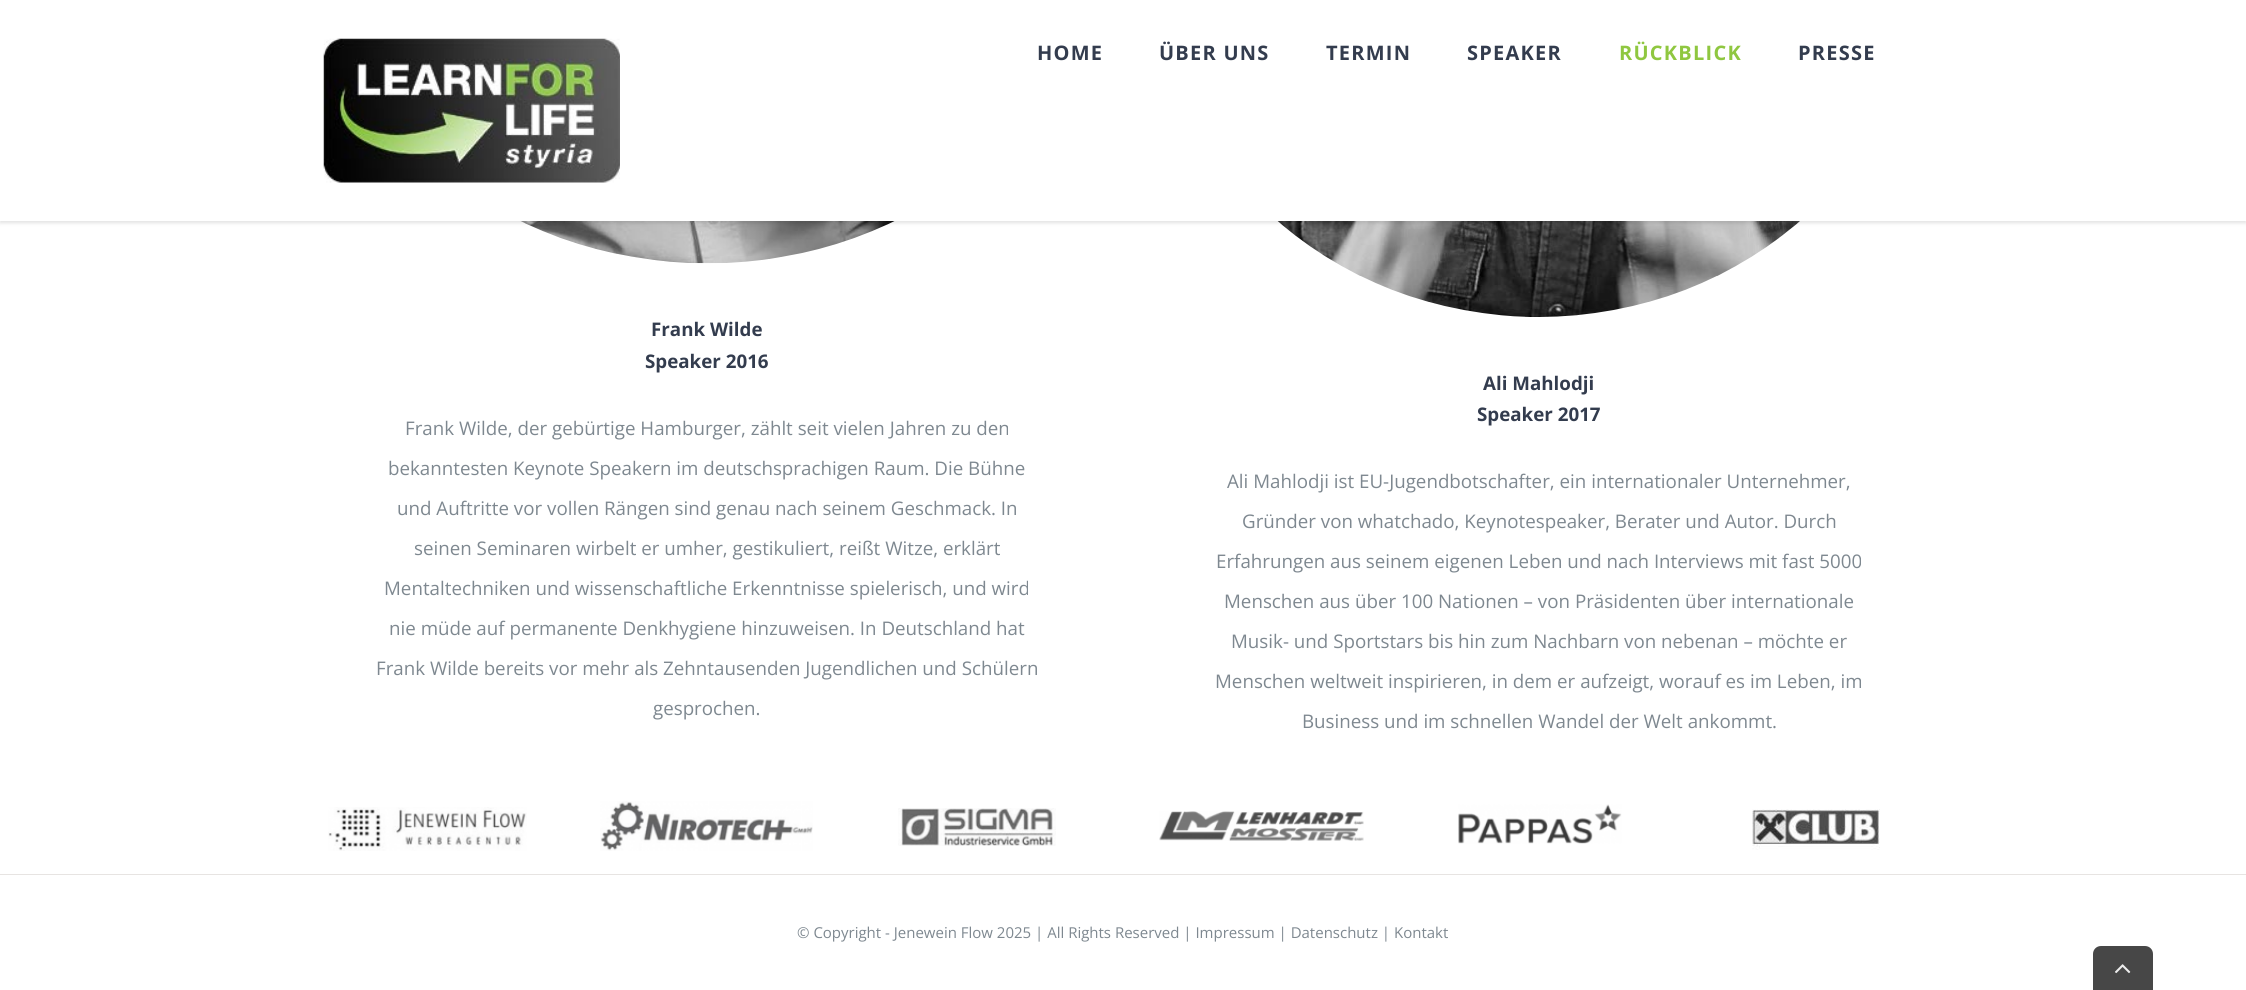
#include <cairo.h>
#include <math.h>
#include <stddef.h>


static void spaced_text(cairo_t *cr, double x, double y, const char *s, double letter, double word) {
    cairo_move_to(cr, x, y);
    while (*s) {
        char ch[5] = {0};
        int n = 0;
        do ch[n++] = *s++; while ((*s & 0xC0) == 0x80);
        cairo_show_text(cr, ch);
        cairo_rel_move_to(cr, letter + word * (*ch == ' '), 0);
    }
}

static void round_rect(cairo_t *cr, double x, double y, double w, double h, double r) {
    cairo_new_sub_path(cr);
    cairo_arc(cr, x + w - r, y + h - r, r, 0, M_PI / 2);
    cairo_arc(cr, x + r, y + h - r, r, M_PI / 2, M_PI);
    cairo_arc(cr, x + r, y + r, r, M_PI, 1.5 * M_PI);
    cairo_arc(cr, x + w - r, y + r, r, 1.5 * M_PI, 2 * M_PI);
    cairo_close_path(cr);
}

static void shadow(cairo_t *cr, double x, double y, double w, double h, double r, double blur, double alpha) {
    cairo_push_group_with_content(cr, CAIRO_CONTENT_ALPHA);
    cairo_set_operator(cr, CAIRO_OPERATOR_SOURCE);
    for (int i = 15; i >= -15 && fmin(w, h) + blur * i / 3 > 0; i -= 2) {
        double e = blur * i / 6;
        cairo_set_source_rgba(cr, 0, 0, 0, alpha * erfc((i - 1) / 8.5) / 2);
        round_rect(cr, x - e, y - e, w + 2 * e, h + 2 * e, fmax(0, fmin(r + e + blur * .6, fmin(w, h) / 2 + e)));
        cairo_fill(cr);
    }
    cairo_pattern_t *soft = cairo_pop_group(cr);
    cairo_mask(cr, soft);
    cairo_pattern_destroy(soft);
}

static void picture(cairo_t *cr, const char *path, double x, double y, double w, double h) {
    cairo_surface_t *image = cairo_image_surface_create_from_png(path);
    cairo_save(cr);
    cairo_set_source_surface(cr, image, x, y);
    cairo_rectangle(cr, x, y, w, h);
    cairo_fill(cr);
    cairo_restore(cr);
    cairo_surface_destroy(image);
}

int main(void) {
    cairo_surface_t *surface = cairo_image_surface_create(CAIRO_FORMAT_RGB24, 2246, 990);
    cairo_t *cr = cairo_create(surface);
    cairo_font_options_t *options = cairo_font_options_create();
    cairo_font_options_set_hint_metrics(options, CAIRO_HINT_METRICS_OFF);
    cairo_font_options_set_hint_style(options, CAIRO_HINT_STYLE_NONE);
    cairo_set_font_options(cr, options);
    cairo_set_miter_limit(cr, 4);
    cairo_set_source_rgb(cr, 1, 1, 1);
    cairo_paint(cr);
    picture(cr, "img2.png", 520, 221, 375, 43);
    picture(cr, "img3.png", 1277, 221, 523, 96);
    cairo_set_source_rgb(cr, 0, 0, 0);
    shadow(cr, 0, 1, 2246, 222, 0, 2, 0.12);
    cairo_set_source_rgb(cr, 1, 1, 1);
    cairo_rectangle(cr, 0, 0, 2246, 221);
    cairo_fill(cr);
    picture(cr, "img1.png", 323, 38, 297, 145);
    cairo_select_font_face(cr, "Open Sans", CAIRO_FONT_SLANT_NORMAL, CAIRO_FONT_WEIGHT_BOLD);
    cairo_set_font_size(cr, 20);
    cairo_set_source_rgb(cr, 0.2, 0.235, 0.306);
    spaced_text(cr, 1037, 60, "HOME", 1.25, 0);
    spaced_text(cr, 1159, 60, "ÜBER UNS", 1.25, 0);
    spaced_text(cr, 1326, 60, "TERMIN", 1.25, 0);
    spaced_text(cr, 1467, 60, "SPEAKER", 1.25, 0);
    cairo_set_source_rgb(cr, 0.561, 0.78, 0.251);
    spaced_text(cr, 1619, 60, "RÜCKBLICK", 1.25, 0);
    cairo_set_source_rgb(cr, 0.2, 0.235, 0.306);
    spaced_text(cr, 1798, 60, "PRESSE", 1.25, 0);
    cairo_set_font_size(cr, 18.75);
    cairo_move_to(cr, 651, 336);
    cairo_show_text(cr, "Frank Wilde");
    cairo_move_to(cr, 645, 368);
    cairo_show_text(cr, "Speaker 2016");
    cairo_select_font_face(cr, "Open Sans", CAIRO_FONT_SLANT_NORMAL, CAIRO_FONT_WEIGHT_NORMAL);
    cairo_set_source_rgb(cr, 0.494, 0.533, 0.565);
    cairo_move_to(cr, 405, 435);
    cairo_show_text(cr, "Frank Wilde, der gebürtige Hamburger, zählt seit vielen Jahren zu den");
    cairo_move_to(cr, 388, 475);
    cairo_show_text(cr, "bekanntesten Keynote Speakern im deutschsprachigen Raum. Die Bühne");
    cairo_move_to(cr, 397, 515);
    cairo_show_text(cr, "und Auftritte vor vollen Rängen sind genau nach seinem Geschmack. In");
    cairo_move_to(cr, 414, 555);
    cairo_show_text(cr, "seinen Seminaren wirbelt er umher, gestikuliert, reißt Witze, erklärt");
    cairo_move_to(cr, 384, 595);
    cairo_show_text(cr, "Mentaltechniken und wissenschaftliche Erkenntnisse spielerisch, und wird");
    cairo_move_to(cr, 389, 635);
    cairo_show_text(cr, "nie müde auf permanente Denkhygiene hinzuweisen. In Deutschland hat");
    cairo_move_to(cr, 376, 675);
    cairo_show_text(cr, "Frank Wilde bereits vor mehr als Zehntausenden Jugendlichen und Schülern");
    cairo_move_to(cr, 653, 715);
    cairo_show_text(cr, "gesprochen.");
    cairo_select_font_face(cr, "Open Sans", CAIRO_FONT_SLANT_NORMAL, CAIRO_FONT_WEIGHT_BOLD);
    cairo_set_source_rgb(cr, 0.2, 0.235, 0.306);
    cairo_move_to(cr, 1483, 390);
    cairo_show_text(cr, "Ali Mahlodji");
    cairo_move_to(cr, 1477, 421);
    cairo_show_text(cr, "Speaker 2017");
    cairo_select_font_face(cr, "Open Sans", CAIRO_FONT_SLANT_NORMAL, CAIRO_FONT_WEIGHT_NORMAL);
    cairo_set_source_rgb(cr, 0.494, 0.533, 0.565);
    cairo_move_to(cr, 1227, 488);
    cairo_show_text(cr, "Ali Mahlodji ist EU-Jugendbotschafter, ein internationaler Unternehmer,");
    cairo_move_to(cr, 1242, 528);
    cairo_show_text(cr, "Gründer von whatchado, Keynotespeaker, Berater und Autor. Durch");
    cairo_move_to(cr, 1216, 568);
    cairo_show_text(cr, "Erfahrungen aus seinem eigenen Leben und nach Interviews mit fast 5000");
    cairo_move_to(cr, 1224, 608);
    cairo_show_text(cr, "Menschen aus über 100 Nationen – von Präsidenten über internationale");
    cairo_move_to(cr, 1231, 648);
    cairo_show_text(cr, "Musik- und Sportstars bis hin zum Nachbarn von nebenan – möchte er");
    cairo_move_to(cr, 1215, 688);
    cairo_show_text(cr, "Menschen weltweit inspirieren, in dem er aufzeigt, worauf es im Leben, im");
    cairo_move_to(cr, 1302, 728);
    cairo_show_text(cr, "Business und im schnellen Wandel der Welt ankommt.");
    picture(cr, "img4.png", 328, 807, 199, 44);
    picture(cr, "img5.png", 600, 801, 213, 50);
    picture(cr, "img6.png", 898, 808, 158, 38);
    picture(cr, "img7.png", 1159, 811, 205, 30);
    picture(cr, "img8.png", 1458, 804, 164, 40);
    picture(cr, "img9.png", 1752, 809, 128, 41);
    cairo_set_source_rgb(cr, 0.906, 0.894, 0.886);
    cairo_rectangle(cr, 0, 874, 2246, 1);
    cairo_fill(cr);
    cairo_set_font_size(cr, 15);
    cairo_set_source_rgb(cr, 0.494, 0.533, 0.565);
    cairo_move_to(cr, 797, 938);
    cairo_show_text(cr, "© Copyright - Jenewein Flow 2025 | All Rights Reserved | Impressum | Datenschutz | Kontakt");
    cairo_set_source_rgb(cr, 0.278, 0.278, 0.278);
    cairo_new_path(cr);
    cairo_move_to(cr, 2101, 946);
    cairo_line_to(cr, 2145, 946);
    cairo_curve_to(cr, 2149.5, 946, 2153, 949.5, 2153, 954);
    cairo_line_to(cr, 2153, 990);
    cairo_line_to(cr, 2093, 990);
    cairo_line_to(cr, 2093, 954);
    cairo_curve_to(cr, 2093, 949.5, 2096.5, 946, 2101, 946);
    cairo_close_path(cr);
    cairo_fill(cr);
    picture(cr, "img10.png", 2115, 964, 16, 10);
    cairo_surface_write_to_png(surface, "page.png");
    cairo_font_options_destroy(options);
    cairo_destroy(cr);
    cairo_surface_destroy(surface);
    return 0;
}
